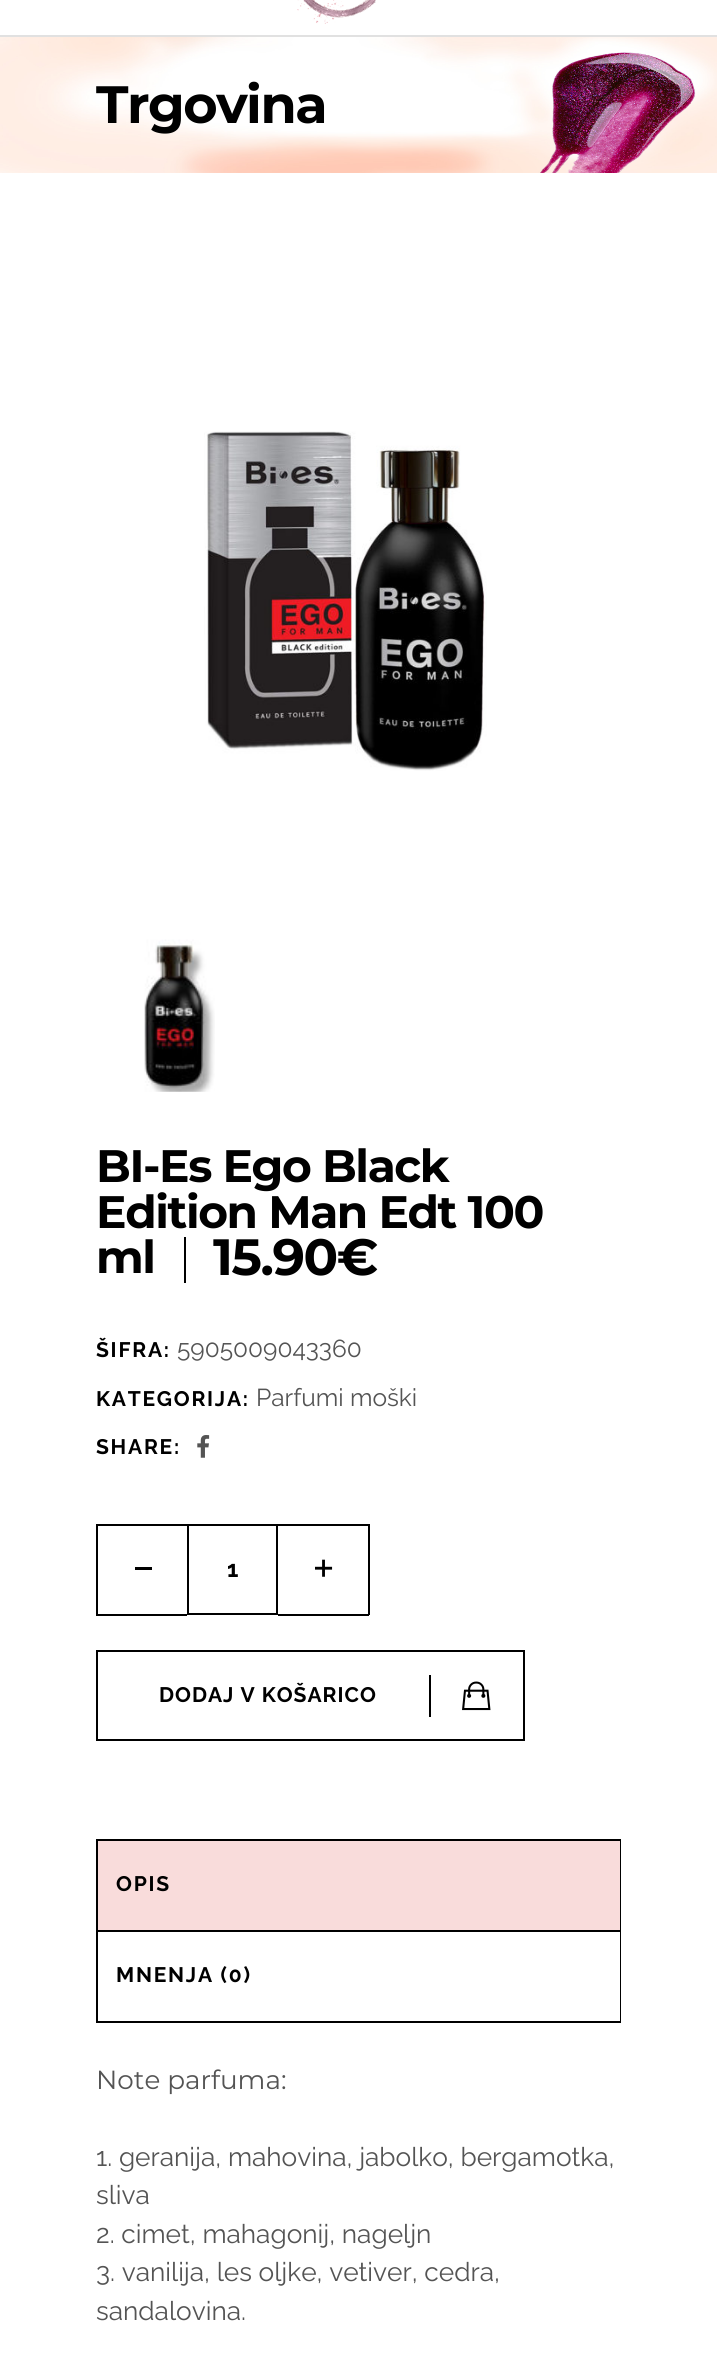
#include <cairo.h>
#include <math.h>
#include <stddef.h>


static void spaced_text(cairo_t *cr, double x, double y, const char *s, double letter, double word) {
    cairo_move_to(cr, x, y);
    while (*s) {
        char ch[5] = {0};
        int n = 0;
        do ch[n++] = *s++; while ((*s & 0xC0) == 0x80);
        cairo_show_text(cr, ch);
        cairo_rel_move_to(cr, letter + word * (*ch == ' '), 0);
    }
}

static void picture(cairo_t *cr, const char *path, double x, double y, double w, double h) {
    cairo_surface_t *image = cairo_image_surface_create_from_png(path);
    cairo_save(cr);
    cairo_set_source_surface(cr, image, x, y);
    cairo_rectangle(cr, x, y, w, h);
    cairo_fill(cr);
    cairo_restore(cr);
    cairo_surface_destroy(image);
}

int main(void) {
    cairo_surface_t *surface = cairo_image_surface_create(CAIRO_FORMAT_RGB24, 717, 2367);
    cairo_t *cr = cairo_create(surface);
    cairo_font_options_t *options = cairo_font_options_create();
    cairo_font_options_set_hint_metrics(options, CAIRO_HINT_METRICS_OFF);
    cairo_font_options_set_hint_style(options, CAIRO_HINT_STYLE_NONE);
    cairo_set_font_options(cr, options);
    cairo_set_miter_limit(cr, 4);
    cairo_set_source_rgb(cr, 1, 1, 1);
    cairo_paint(cr);
    cairo_set_source_rgb(cr, 0.882, 0.882, 0.882);
    cairo_rectangle(cr, 0, 35, 717, 2);
    cairo_fill(cr);
    picture(cr, "img1.png", 297, 0, 79, 24);
    picture(cr, "img2.png", 0, 37, 717, 136);
    cairo_select_font_face(cr, "Montserrat", CAIRO_FONT_SLANT_NORMAL, CAIRO_FONT_WEIGHT_BOLD);
    cairo_set_font_size(cr, 52.5);
    cairo_set_source_rgb(cr, 0, 0, 0);
    spaced_text(cr, 96, 123, "Trgovina", -1.5, 0);
    picture(cr, "img3.png", 204, 431, 283, 340);
    picture(cr, "img4.png", 144, 939, 71, 153);
    cairo_set_font_size(cr, 45.5);
    spaced_text(cr, 96, 1182, "BI-Es Ego Black", -1.4, 0);
    spaced_text(cr, 96, 1228, "Edition Man Edt 100", -1.4, 0);
    spaced_text(cr, 96, 1273, "ml", -1.4, 0);
    cairo_rectangle(cr, 184, 1237, 2, 46);
    cairo_fill(cr);
    cairo_set_font_size(cr, 51);
    spaced_text(cr, 213, 1275, "15.90€", -1.4, 0);
    cairo_select_font_face(cr, "Raleway", CAIRO_FONT_SLANT_NORMAL, CAIRO_FONT_WEIGHT_BOLD);
    cairo_set_font_size(cr, 21);
    spaced_text(cr, 96, 1357, "ŠIFRA:", 1.75, 0);
    cairo_select_font_face(cr, "Raleway", CAIRO_FONT_SLANT_NORMAL, CAIRO_FONT_WEIGHT_NORMAL);
    cairo_set_font_size(cr, 24.5);
    cairo_set_source_rgb(cr, 0.329, 0.329, 0.329);
    cairo_move_to(cr, 177, 1357);
    cairo_show_text(cr, "5905009043360");
    cairo_select_font_face(cr, "Raleway", CAIRO_FONT_SLANT_NORMAL, CAIRO_FONT_WEIGHT_BOLD);
    cairo_set_font_size(cr, 21);
    cairo_set_source_rgb(cr, 0, 0, 0);
    spaced_text(cr, 96, 1406, "KATEGORIJA:", 1.75, 0);
    cairo_select_font_face(cr, "Raleway", CAIRO_FONT_SLANT_NORMAL, CAIRO_FONT_WEIGHT_NORMAL);
    cairo_set_font_size(cr, 24.5);
    cairo_set_source_rgb(cr, 0.329, 0.329, 0.329);
    cairo_move_to(cr, 256, 1406);
    cairo_show_text(cr, "Parfumi moški");
    cairo_select_font_face(cr, "Raleway", CAIRO_FONT_SLANT_NORMAL, CAIRO_FONT_WEIGHT_BOLD);
    cairo_set_font_size(cr, 21);
    cairo_set_source_rgb(cr, 0, 0, 0);
    spaced_text(cr, 96, 1454, "SHARE:", 1.75, 0);
    picture(cr, "img5.png", 197, 1435, 13, 23);
    cairo_rectangle(cr, 96, 1524, 91, 2);
    cairo_fill(cr);
    cairo_rectangle(cr, 96, 1614, 91, 2);
    cairo_fill(cr);
    cairo_rectangle(cr, 96, 1524, 2, 91);
    cairo_fill(cr);
    cairo_rectangle(cr, 135, 1567, 17, 3);
    cairo_fill(cr);
    cairo_rectangle(cr, 188, 1525, 89, 89);
    cairo_stroke(cr);
    cairo_set_font_size(cr, 23);
    cairo_move_to(cr, 227, 1577);
    cairo_show_text(cr, "1");
    cairo_rectangle(cr, 278, 1524, 91, 2);
    cairo_fill(cr);
    cairo_rectangle(cr, 368, 1524, 2, 91);
    cairo_fill(cr);
    cairo_rectangle(cr, 278, 1614, 91, 2);
    cairo_fill(cr);
    picture(cr, "img6.png", 315, 1559, 18, 18);
    cairo_rectangle(cr, 97, 1651, 427, 89);
    cairo_stroke(cr);
    cairo_set_font_size(cr, 21);
    spaced_text(cr, 159, 1702, "DODAJ V KOŠARICO", 1, 0);
    cairo_rectangle(cr, 429, 1675, 2, 42);
    cairo_fill(cr);
    picture(cr, "img7.png", 462, 1681, 29, 30);
    cairo_rectangle(cr, 97, 1840, 523, 182);
    cairo_stroke(cr);
    cairo_rectangle(cr, 98, 1930, 522, 2);
    cairo_fill(cr);
    cairo_set_source_rgb(cr, 0.973, 0.863, 0.859);
    cairo_rectangle(cr, 98, 1841, 522, 89);
    cairo_fill(cr);
    cairo_set_source_rgb(cr, 0, 0, 0);
    spaced_text(cr, 116, 1891, "OPIS", 1.75, 0);
    cairo_set_source_rgb(cr, 1, 1, 1);
    cairo_rectangle(cr, 619, 1932, 1, 89);
    cairo_fill(cr);
    cairo_set_source_rgb(cr, 0, 0, 0);
    spaced_text(cr, 116, 1982, "MNENJA (0)", 1.75, 0);
    cairo_select_font_face(cr, "Montserrat", CAIRO_FONT_SLANT_NORMAL, CAIRO_FONT_WEIGHT_NORMAL);
    cairo_set_font_size(cr, 26.25);
    cairo_set_source_rgb(cr, 0.329, 0.329, 0.329);
    cairo_move_to(cr, 96, 2089);
    cairo_show_text(cr, "Note parfuma:");
    cairo_select_font_face(cr, "Raleway", CAIRO_FONT_SLANT_NORMAL, CAIRO_FONT_WEIGHT_NORMAL);
    cairo_move_to(cr, 96, 2166);
    cairo_show_text(cr, "1. geranija, mahovina, jabolko, bergamotka,");
    cairo_move_to(cr, 96, 2204);
    cairo_show_text(cr, "sliva");
    cairo_move_to(cr, 96, 2243);
    cairo_show_text(cr, "2. cimet, mahagonij, nageljn");
    cairo_move_to(cr, 96, 2281);
    cairo_show_text(cr, "3. vanilija, les oljke, vetiver, cedra,");
    cairo_move_to(cr, 96, 2320);
    cairo_show_text(cr, "sandalovina.");
    cairo_surface_write_to_png(surface, "page.png");
    cairo_font_options_destroy(options);
    cairo_destroy(cr);
    cairo_surface_destroy(surface);
    return 0;
}
